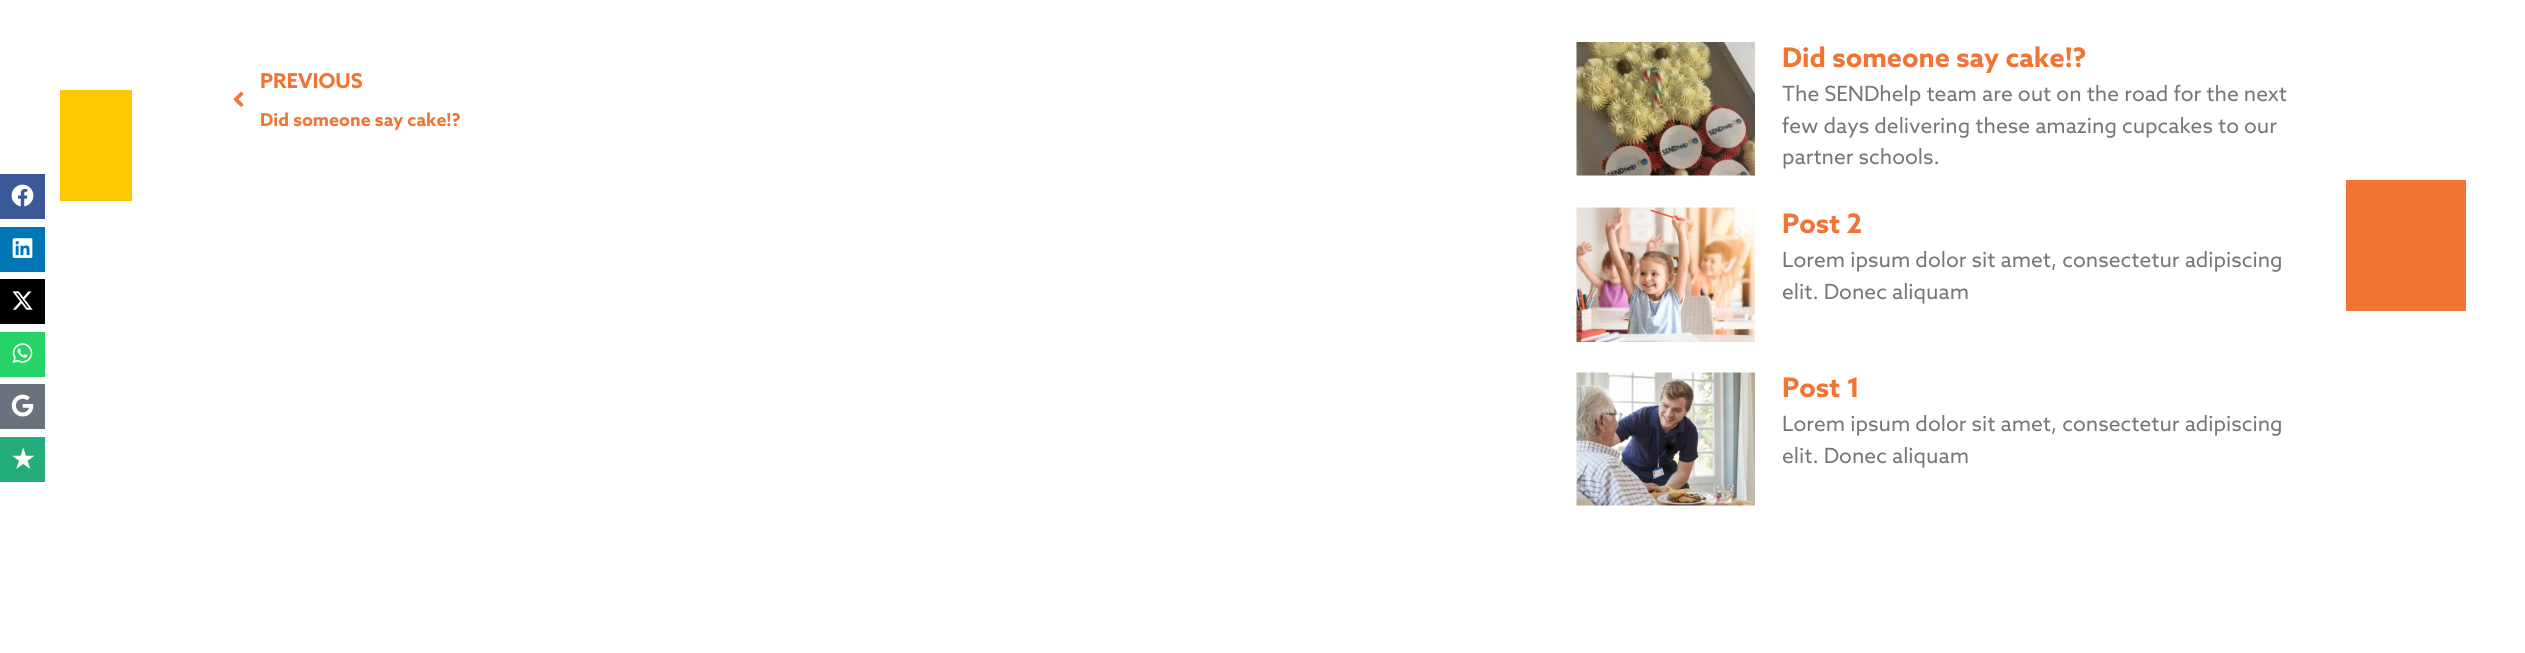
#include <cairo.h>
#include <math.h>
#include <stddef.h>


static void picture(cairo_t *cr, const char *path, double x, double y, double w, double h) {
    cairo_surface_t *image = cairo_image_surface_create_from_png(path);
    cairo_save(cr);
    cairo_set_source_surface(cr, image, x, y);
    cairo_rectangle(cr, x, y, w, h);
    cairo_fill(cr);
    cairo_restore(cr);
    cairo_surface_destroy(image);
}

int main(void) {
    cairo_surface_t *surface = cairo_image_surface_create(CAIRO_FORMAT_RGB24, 2525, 653);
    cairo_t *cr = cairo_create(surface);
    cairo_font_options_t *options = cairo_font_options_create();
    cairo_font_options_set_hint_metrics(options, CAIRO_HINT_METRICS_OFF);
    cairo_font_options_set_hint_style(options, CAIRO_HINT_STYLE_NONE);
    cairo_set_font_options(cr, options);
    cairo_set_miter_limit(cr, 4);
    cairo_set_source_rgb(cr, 1, 1, 1);
    cairo_paint(cr);
    cairo_set_source_rgb(cr, 0.231, 0.349, 0.596);
    cairo_rectangle(cr, 0, 174, 45, 45);
    cairo_fill(cr);
    picture(cr, "img1.png", 11, 184, 23, 23);
    cairo_set_source_rgb(cr, 0, 0.467, 0.71);
    cairo_rectangle(cr, 0, 227, 45, 45);
    cairo_fill(cr);
    picture(cr, "img2.png", 12, 238, 21, 20);
    cairo_set_source_rgb(cr, 0, 0, 0);
    cairo_rectangle(cr, 0, 279, 45, 45);
    cairo_fill(cr);
    picture(cr, "img3.png", 12, 291, 21, 19);
    cairo_set_source_rgb(cr, 0.145, 0.827, 0.4);
    cairo_rectangle(cr, 0, 332, 45, 45);
    cairo_fill(cr);
    picture(cr, "img4.png", 12, 343, 21, 20);
    cairo_set_source_rgb(cr, 0.412, 0.447, 0.49);
    cairo_rectangle(cr, 0, 384, 45, 45);
    cairo_fill(cr);
    picture(cr, "img5.png", 11, 394, 23, 23);
    cairo_set_source_rgb(cr, 0.137, 0.678, 0.478);
    cairo_rectangle(cr, 0, 437, 45, 45);
    cairo_fill(cr);
    picture(cr, "img6.png", 12, 447, 23, 22);
    cairo_set_source_rgb(cr, 0.996, 0.784, 0.008);
    cairo_rectangle(cr, 60, 90, 72, 111);
    cairo_fill(cr);
    picture(cr, "img7.png", 233, 91, 11, 16);
    cairo_select_font_face(cr, "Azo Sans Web", CAIRO_FONT_SLANT_NORMAL, CAIRO_FONT_WEIGHT_BOLD);
    cairo_set_font_size(cr, 20.5);
    cairo_set_source_rgb(cr, 0.949, 0.455, 0.208);
    cairo_move_to(cr, 260, 88);
    cairo_show_text(cr, "PREVIOUS");
    cairo_set_font_size(cr, 17.8);
    cairo_move_to(cr, 260, 126);
    cairo_show_text(cr, "Did someone say cake!?");
    picture(cr, "img8.png", 1576, 42, 179, 134);
    cairo_set_font_size(cr, 27);
    cairo_move_to(cr, 1782, 67);
    cairo_show_text(cr, "Did someone say cake!?");
    cairo_select_font_face(cr, "Azo Sans Web", CAIRO_FONT_SLANT_NORMAL, CAIRO_FONT_WEIGHT_NORMAL);
    cairo_set_font_size(cr, 21);
    cairo_set_source_rgb(cr, 0.467, 0.467, 0.467);
    cairo_move_to(cr, 1782, 101);
    cairo_show_text(cr, "The SENDhelp team are out on the road for the next");
    cairo_move_to(cr, 1782, 133);
    cairo_show_text(cr, "few days delivering these amazing cupcakes to our");
    cairo_move_to(cr, 1782, 164);
    cairo_show_text(cr, "partner schools.");
    picture(cr, "img9.png", 1576, 207, 179, 135);
    cairo_select_font_face(cr, "Azo Sans Web", CAIRO_FONT_SLANT_NORMAL, CAIRO_FONT_WEIGHT_BOLD);
    cairo_set_font_size(cr, 27);
    cairo_set_source_rgb(cr, 0.949, 0.455, 0.208);
    cairo_move_to(cr, 1782, 233);
    cairo_show_text(cr, "Post 2");
    cairo_select_font_face(cr, "Azo Sans Web", CAIRO_FONT_SLANT_NORMAL, CAIRO_FONT_WEIGHT_NORMAL);
    cairo_set_font_size(cr, 21);
    cairo_set_source_rgb(cr, 0.467, 0.467, 0.467);
    cairo_move_to(cr, 1782, 267);
    cairo_show_text(cr, "Lorem ipsum dolor sit amet, consectetur adipiscing");
    cairo_move_to(cr, 1782, 299);
    cairo_show_text(cr, "elit. Donec aliquam");
    picture(cr, "img10.png", 1576, 372, 179, 134);
    cairo_select_font_face(cr, "Azo Sans Web", CAIRO_FONT_SLANT_NORMAL, CAIRO_FONT_WEIGHT_BOLD);
    cairo_set_font_size(cr, 27);
    cairo_set_source_rgb(cr, 0.949, 0.455, 0.208);
    cairo_move_to(cr, 1782, 397);
    cairo_show_text(cr, "Post 1");
    cairo_select_font_face(cr, "Azo Sans Web", CAIRO_FONT_SLANT_NORMAL, CAIRO_FONT_WEIGHT_NORMAL);
    cairo_set_font_size(cr, 21);
    cairo_set_source_rgb(cr, 0.467, 0.467, 0.467);
    cairo_move_to(cr, 1782, 431);
    cairo_show_text(cr, "Lorem ipsum dolor sit amet, consectetur adipiscing");
    cairo_move_to(cr, 1782, 463);
    cairo_show_text(cr, "elit. Donec aliquam");
    cairo_set_source_rgb(cr, 0.949, 0.455, 0.208);
    cairo_rectangle(cr, 2346, 180, 120, 131);
    cairo_fill(cr);
    cairo_surface_write_to_png(surface, "page.png");
    cairo_font_options_destroy(options);
    cairo_destroy(cr);
    cairo_surface_destroy(surface);
    return 0;
}
